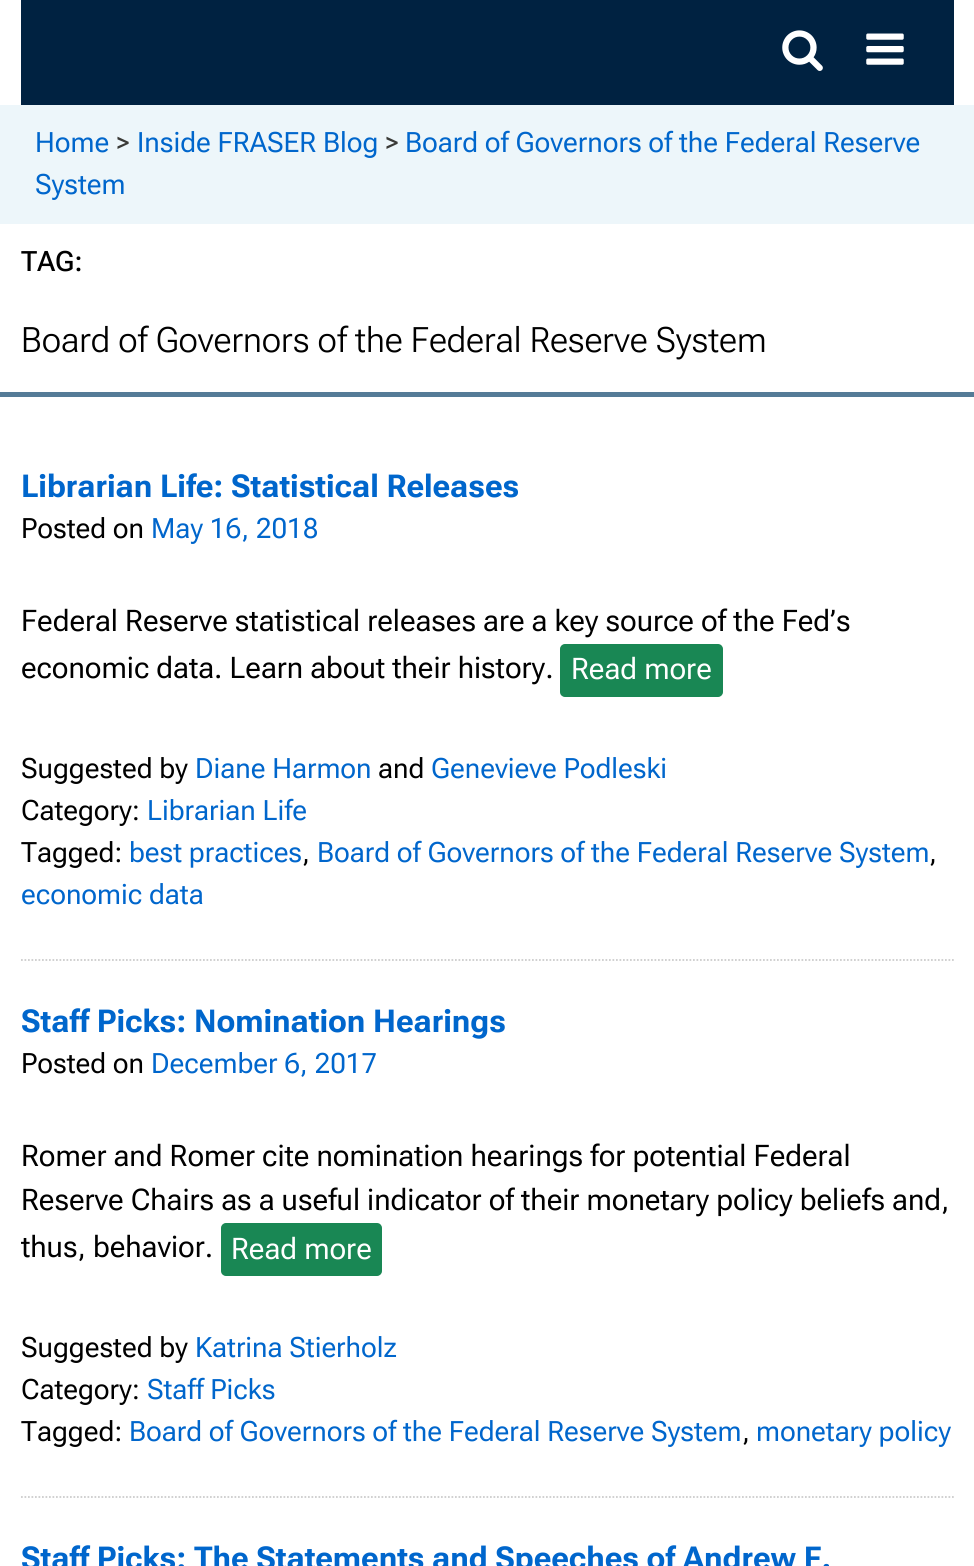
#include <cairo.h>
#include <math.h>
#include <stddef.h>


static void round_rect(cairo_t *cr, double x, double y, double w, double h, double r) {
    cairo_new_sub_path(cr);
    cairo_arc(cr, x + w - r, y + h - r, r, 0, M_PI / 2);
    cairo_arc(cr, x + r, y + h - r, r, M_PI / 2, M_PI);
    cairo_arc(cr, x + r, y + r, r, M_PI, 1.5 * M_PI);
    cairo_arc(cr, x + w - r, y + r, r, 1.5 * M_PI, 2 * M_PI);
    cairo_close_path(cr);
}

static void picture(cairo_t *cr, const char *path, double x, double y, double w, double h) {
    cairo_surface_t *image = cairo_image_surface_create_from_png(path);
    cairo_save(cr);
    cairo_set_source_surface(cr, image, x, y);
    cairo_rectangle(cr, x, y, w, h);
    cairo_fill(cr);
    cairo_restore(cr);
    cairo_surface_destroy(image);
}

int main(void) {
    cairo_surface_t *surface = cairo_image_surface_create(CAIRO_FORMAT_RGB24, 974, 1566);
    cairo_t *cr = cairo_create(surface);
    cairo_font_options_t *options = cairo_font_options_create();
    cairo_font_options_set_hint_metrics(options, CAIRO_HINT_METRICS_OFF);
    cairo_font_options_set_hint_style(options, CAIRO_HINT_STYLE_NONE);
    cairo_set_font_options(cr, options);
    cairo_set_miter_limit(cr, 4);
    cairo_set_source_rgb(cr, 1, 1, 1);
    cairo_paint(cr);
    cairo_set_source_rgb(cr, 0, 0.133, 0.255);
    cairo_rectangle(cr, 21, 0, 933, 105);
    cairo_fill(cr);
    picture(cr, "img1.png", 782, 30, 41, 41);
    picture(cr, "img2.png", 866, 33, 38, 32);
    cairo_set_source_rgb(cr, 0.929, 0.961, 0.98);
    cairo_rectangle(cr, 0, 105, 974, 119);
    cairo_fill(cr);
    cairo_select_font_face(cr, "Roboto Flex", CAIRO_FONT_SLANT_NORMAL, CAIRO_FONT_WEIGHT_NORMAL);
    cairo_set_font_size(cr, 28);
    cairo_set_source_rgb(cr, 0, 0.4, 0.8);
    cairo_move_to(cr, 35, 152);
    cairo_show_text(cr, "Home");
    cairo_set_source_rgb(cr, 0.227, 0.227, 0.216);
    cairo_move_to(cr, 116, 152);
    cairo_show_text(cr, ">");
    cairo_set_source_rgb(cr, 0, 0.4, 0.8);
    cairo_move_to(cr, 137, 152);
    cairo_show_text(cr, "Inside FRASER Blog");
    cairo_set_source_rgb(cr, 0.227, 0.227, 0.216);
    cairo_move_to(cr, 385, 152);
    cairo_show_text(cr, ">");
    cairo_set_source_rgb(cr, 0, 0.4, 0.8);
    cairo_move_to(cr, 405, 152);
    cairo_show_text(cr, "Board of Governors of the Federal Reserve");
    cairo_move_to(cr, 35, 194);
    cairo_show_text(cr, "System");
    cairo_set_source_rgb(cr, 0.333, 0.482, 0.592);
    cairo_rectangle(cr, 0, 392, 974, 5);
    cairo_fill(cr);
    cairo_select_font_face(cr, "Roboto Flex Medium", CAIRO_FONT_SLANT_NORMAL, CAIRO_FONT_WEIGHT_NORMAL);
    cairo_set_source_rgb(cr, 0, 0, 0);
    cairo_move_to(cr, 21, 271);
    cairo_show_text(cr, "TAG:");
    cairo_select_font_face(cr, "Roboto Flex Light", CAIRO_FONT_SLANT_NORMAL, CAIRO_FONT_WEIGHT_NORMAL);
    cairo_set_font_size(cr, 35);
    cairo_move_to(cr, 21, 352);
    cairo_show_text(cr, "Board of Governors of the Federal Reserve System");
    cairo_new_path(cr);
    cairo_move_to(cr, 21, 960);
    cairo_line_to(cr, 954, 960);
    cairo_set_source_rgb(cr, 0.8, 0.8, 0.8);
    cairo_set_line_width(cr, 1.8);
    cairo_set_dash(cr, (double[]){1.75, 1.75}, 2, 0);
    cairo_stroke(cr);
    cairo_select_font_face(cr, "Roboto Flex", CAIRO_FONT_SLANT_NORMAL, CAIRO_FONT_WEIGHT_BOLD);
    cairo_set_font_size(cr, 31.5);
    cairo_set_source_rgb(cr, 0, 0.4, 0.8);
    cairo_move_to(cr, 21, 497);
    cairo_show_text(cr, "Librarian Life: Statistical Releases");
    cairo_select_font_face(cr, "Roboto Flex", CAIRO_FONT_SLANT_NORMAL, CAIRO_FONT_WEIGHT_NORMAL);
    cairo_set_font_size(cr, 28);
    cairo_set_source_rgb(cr, 0, 0, 0);
    cairo_move_to(cr, 21, 538);
    cairo_show_text(cr, "Posted on");
    cairo_set_source_rgb(cr, 0, 0.4, 0.8);
    cairo_move_to(cr, 151, 538);
    cairo_show_text(cr, "May 16, 2018");
    cairo_select_font_face(cr, "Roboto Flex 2", CAIRO_FONT_SLANT_NORMAL, CAIRO_FONT_WEIGHT_NORMAL);
    cairo_set_font_size(cr, 29.75);
    cairo_set_source_rgb(cr, 0, 0, 0);
    cairo_move_to(cr, 21, 631);
    cairo_show_text(cr, "Federal Reserve statistical releases are a key source of the Fed’s");
    cairo_move_to(cr, 21, 678);
    cairo_show_text(cr, "economic data. Learn about their history.");
    cairo_set_source_rgb(cr, 0.098, 0.529, 0.329);
    round_rect(cr, 561, 645, 161, 51, 4);
    cairo_fill_preserve(cr);
    cairo_set_line_width(cr, 2);
    cairo_set_dash(cr, NULL, 0, 0);
    cairo_stroke(cr);
    cairo_set_source_rgb(cr, 1, 1, 1);
    cairo_move_to(cr, 571, 679);
    cairo_show_text(cr, "Read more");
    cairo_select_font_face(cr, "Roboto Flex", CAIRO_FONT_SLANT_NORMAL, CAIRO_FONT_WEIGHT_NORMAL);
    cairo_set_font_size(cr, 28);
    cairo_set_source_rgb(cr, 0, 0, 0);
    cairo_move_to(cr, 21, 778);
    cairo_show_text(cr, "Suggested by");
    cairo_set_source_rgb(cr, 0, 0.4, 0.8);
    cairo_move_to(cr, 195, 778);
    cairo_show_text(cr, "Diane Harmon");
    cairo_set_source_rgb(cr, 0, 0, 0);
    cairo_move_to(cr, 378, 778);
    cairo_show_text(cr, "and");
    cairo_set_source_rgb(cr, 0, 0.4, 0.8);
    cairo_move_to(cr, 431, 778);
    cairo_show_text(cr, "Genevieve Podleski");
    cairo_set_source_rgb(cr, 0, 0, 0);
    cairo_move_to(cr, 21, 820);
    cairo_show_text(cr, "Category:");
    cairo_set_source_rgb(cr, 0, 0.4, 0.8);
    cairo_move_to(cr, 147, 820);
    cairo_show_text(cr, "Librarian Life");
    cairo_set_source_rgb(cr, 0, 0, 0);
    cairo_move_to(cr, 21, 862);
    cairo_show_text(cr, "Tagged:");
    cairo_set_source_rgb(cr, 0, 0.4, 0.8);
    cairo_move_to(cr, 129, 862);
    cairo_show_text(cr, "best practices");
    cairo_set_source_rgb(cr, 0, 0, 0);
    cairo_move_to(cr, 302, 862);
    cairo_show_text(cr, ",");
    cairo_set_source_rgb(cr, 0, 0.4, 0.8);
    cairo_move_to(cr, 317, 862);
    cairo_show_text(cr, "Board of Governors of the Federal Reserve System");
    cairo_set_source_rgb(cr, 0, 0, 0);
    cairo_move_to(cr, 929, 862);
    cairo_show_text(cr, ",");
    cairo_set_source_rgb(cr, 0, 0.4, 0.8);
    cairo_move_to(cr, 21, 904);
    cairo_show_text(cr, "economic data");
    cairo_new_path(cr);
    cairo_move_to(cr, 21, 1497);
    cairo_line_to(cr, 954, 1497);
    cairo_set_source_rgb(cr, 0.8, 0.8, 0.8);
    cairo_set_line_width(cr, 1.8);
    cairo_set_dash(cr, (double[]){1.75, 1.75}, 2, 0);
    cairo_stroke(cr);
    cairo_select_font_face(cr, "Roboto Flex", CAIRO_FONT_SLANT_NORMAL, CAIRO_FONT_WEIGHT_BOLD);
    cairo_set_font_size(cr, 31.5);
    cairo_set_source_rgb(cr, 0, 0.4, 0.8);
    cairo_move_to(cr, 21, 1032);
    cairo_show_text(cr, "Staff Picks: Nomination Hearings");
    cairo_select_font_face(cr, "Roboto Flex", CAIRO_FONT_SLANT_NORMAL, CAIRO_FONT_WEIGHT_NORMAL);
    cairo_set_font_size(cr, 28);
    cairo_set_source_rgb(cr, 0, 0, 0);
    cairo_move_to(cr, 21, 1073);
    cairo_show_text(cr, "Posted on");
    cairo_set_source_rgb(cr, 0, 0.4, 0.8);
    cairo_move_to(cr, 151, 1073);
    cairo_show_text(cr, "December 6, 2017");
    cairo_select_font_face(cr, "Roboto Flex 2", CAIRO_FONT_SLANT_NORMAL, CAIRO_FONT_WEIGHT_NORMAL);
    cairo_set_font_size(cr, 29.75);
    cairo_set_source_rgb(cr, 0, 0, 0);
    cairo_move_to(cr, 21, 1166);
    cairo_show_text(cr, "Romer and Romer cite nomination hearings for potential Federal");
    cairo_move_to(cr, 21, 1210);
    cairo_show_text(cr, "Reserve Chairs as a useful indicator of their monetary policy beliefs and,");
    cairo_move_to(cr, 21, 1257);
    cairo_show_text(cr, "thus, behavior.");
    cairo_set_source_rgb(cr, 0.098, 0.529, 0.329);
    round_rect(cr, 222, 1224, 159, 51, 4);
    cairo_fill_preserve(cr);
    cairo_set_line_width(cr, 2);
    cairo_set_dash(cr, NULL, 0, 0);
    cairo_stroke(cr);
    cairo_set_source_rgb(cr, 1, 1, 1);
    cairo_move_to(cr, 231, 1259);
    cairo_show_text(cr, "Read more");
    cairo_select_font_face(cr, "Roboto Flex", CAIRO_FONT_SLANT_NORMAL, CAIRO_FONT_WEIGHT_NORMAL);
    cairo_set_font_size(cr, 28);
    cairo_set_source_rgb(cr, 0, 0, 0);
    cairo_move_to(cr, 21, 1357);
    cairo_show_text(cr, "Suggested by");
    cairo_set_source_rgb(cr, 0, 0.4, 0.8);
    cairo_move_to(cr, 195, 1357);
    cairo_show_text(cr, "Katrina Stierholz");
    cairo_set_source_rgb(cr, 0, 0, 0);
    cairo_move_to(cr, 21, 1399);
    cairo_show_text(cr, "Category:");
    cairo_set_source_rgb(cr, 0, 0.4, 0.8);
    cairo_move_to(cr, 147, 1399);
    cairo_show_text(cr, "Staff Picks");
    cairo_set_source_rgb(cr, 0, 0, 0);
    cairo_move_to(cr, 21, 1441);
    cairo_show_text(cr, "Tagged:");
    cairo_set_source_rgb(cr, 0, 0.4, 0.8);
    cairo_move_to(cr, 129, 1441);
    cairo_show_text(cr, "Board of Governors of the Federal Reserve System");
    cairo_set_source_rgb(cr, 0, 0, 0);
    cairo_move_to(cr, 742, 1441);
    cairo_show_text(cr, ",");
    cairo_set_source_rgb(cr, 0, 0.4, 0.8);
    cairo_move_to(cr, 756, 1441);
    cairo_show_text(cr, "monetary policy");
    cairo_select_font_face(cr, "Roboto Flex", CAIRO_FONT_SLANT_NORMAL, CAIRO_FONT_WEIGHT_BOLD);
    cairo_set_font_size(cr, 31.5);
    cairo_move_to(cr, 21, 1569);
    cairo_show_text(cr, "Staff Picks: The Statements and Speeches of Andrew F.");
    cairo_surface_write_to_png(surface, "page.png");
    cairo_font_options_destroy(options);
    cairo_destroy(cr);
    cairo_surface_destroy(surface);
    return 0;
}
